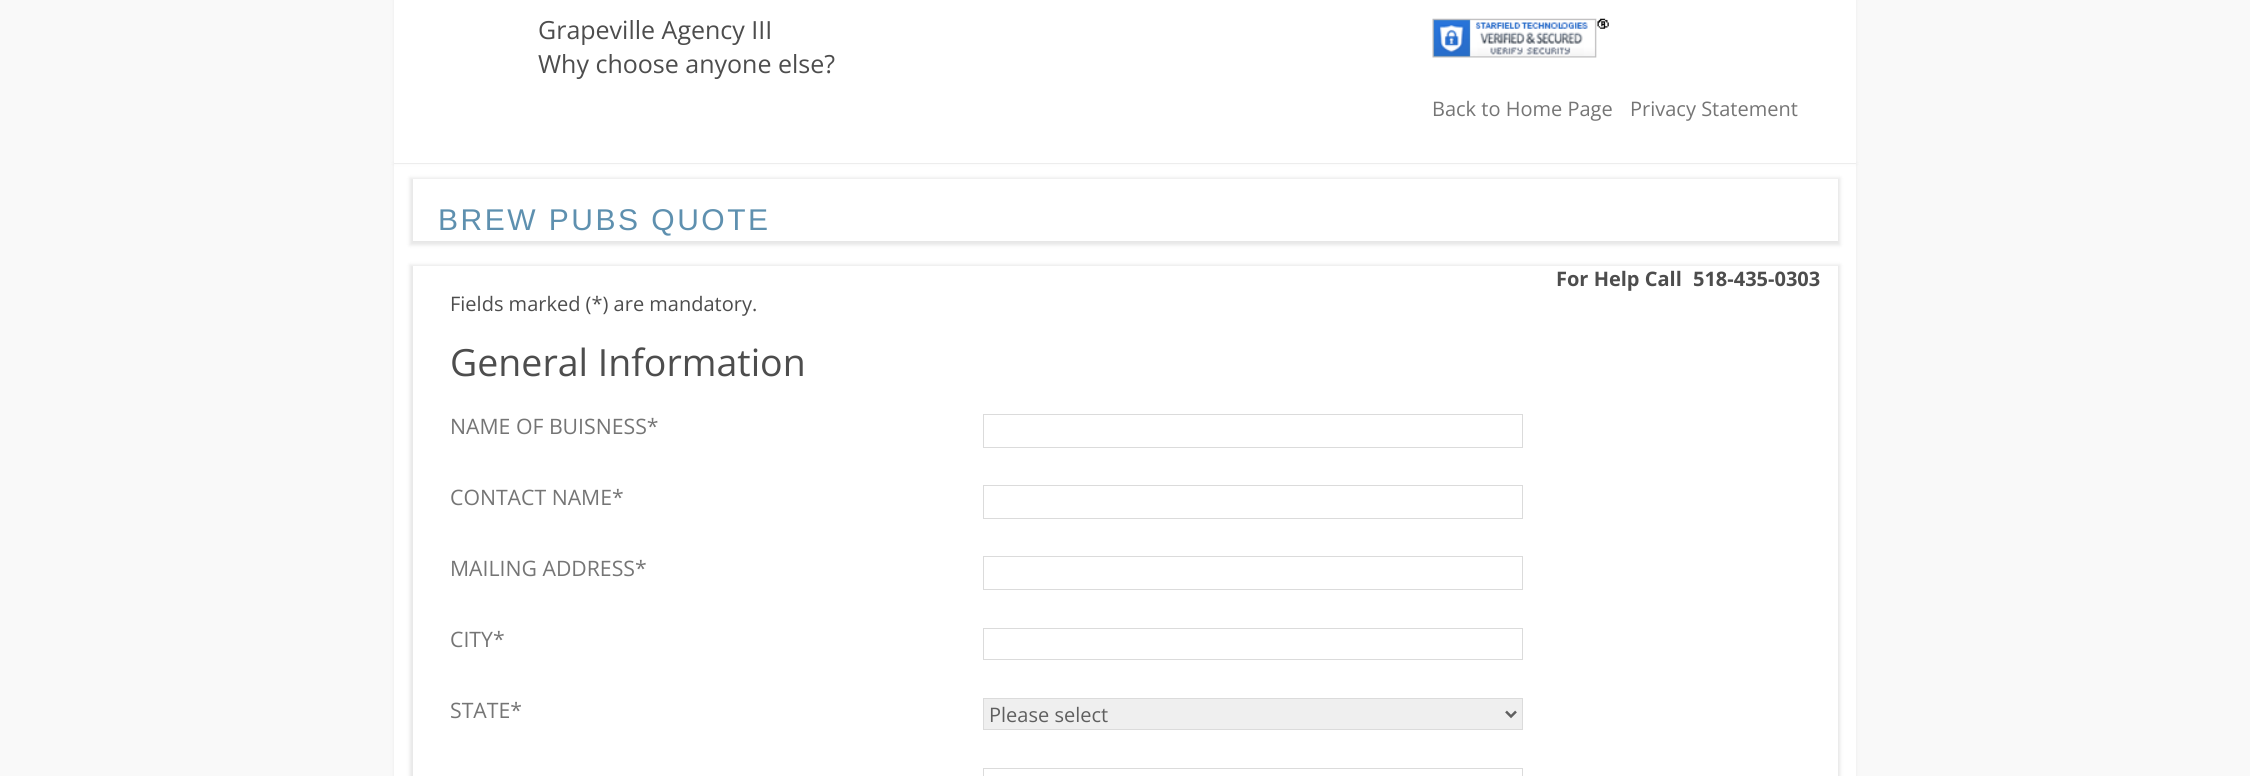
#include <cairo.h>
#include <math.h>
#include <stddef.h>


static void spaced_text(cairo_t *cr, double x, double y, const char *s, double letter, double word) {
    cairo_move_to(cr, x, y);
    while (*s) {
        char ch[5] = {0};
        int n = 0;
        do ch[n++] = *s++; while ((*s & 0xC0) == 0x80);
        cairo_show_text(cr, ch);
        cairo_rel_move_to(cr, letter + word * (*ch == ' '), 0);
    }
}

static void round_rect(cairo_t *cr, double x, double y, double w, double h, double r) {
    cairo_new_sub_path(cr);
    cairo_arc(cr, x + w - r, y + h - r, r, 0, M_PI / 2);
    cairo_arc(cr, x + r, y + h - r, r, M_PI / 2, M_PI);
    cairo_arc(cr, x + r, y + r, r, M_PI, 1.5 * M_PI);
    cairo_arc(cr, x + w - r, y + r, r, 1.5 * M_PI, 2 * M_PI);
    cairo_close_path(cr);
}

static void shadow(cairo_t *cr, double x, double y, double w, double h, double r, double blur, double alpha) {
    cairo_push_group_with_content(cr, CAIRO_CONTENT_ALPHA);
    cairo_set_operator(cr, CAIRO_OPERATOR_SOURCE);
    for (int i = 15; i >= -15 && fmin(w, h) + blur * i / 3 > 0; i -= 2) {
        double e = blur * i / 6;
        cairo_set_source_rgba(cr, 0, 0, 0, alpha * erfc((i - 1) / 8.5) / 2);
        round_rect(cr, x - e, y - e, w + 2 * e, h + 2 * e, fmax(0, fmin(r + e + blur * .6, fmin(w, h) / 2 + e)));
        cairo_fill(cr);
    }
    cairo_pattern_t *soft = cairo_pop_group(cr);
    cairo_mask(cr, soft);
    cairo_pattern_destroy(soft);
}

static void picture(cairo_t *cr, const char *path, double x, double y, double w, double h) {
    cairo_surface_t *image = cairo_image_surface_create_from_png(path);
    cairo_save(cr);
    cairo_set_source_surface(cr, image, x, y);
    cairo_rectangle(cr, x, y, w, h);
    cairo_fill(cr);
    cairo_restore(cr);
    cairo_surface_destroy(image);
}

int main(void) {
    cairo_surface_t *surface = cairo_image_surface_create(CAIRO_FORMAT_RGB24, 2250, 776);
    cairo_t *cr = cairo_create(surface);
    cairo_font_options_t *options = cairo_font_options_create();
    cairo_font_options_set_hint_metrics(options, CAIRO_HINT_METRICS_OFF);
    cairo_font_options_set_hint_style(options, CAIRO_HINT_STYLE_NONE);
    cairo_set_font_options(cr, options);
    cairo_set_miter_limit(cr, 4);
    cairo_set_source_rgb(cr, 0.973, 0.973, 0.973);
    cairo_paint(cr);
    cairo_set_source_rgb(cr, 0.388, 0.388, 0.388);
    shadow(cr, 394, 164, 1462, 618, 0, 2, 0.1);
    cairo_set_source_rgb(cr, 1, 1, 1);
    cairo_rectangle(cr, 394, 164, 1462, 612);
    cairo_fill(cr);
    cairo_set_source_rgb(cr, 0.388, 0.388, 0.388);
    shadow(cr, 394, 0, 1462, 163, 0, 2, 0.1);
    cairo_set_source_rgb(cr, 1, 1, 1);
    cairo_rectangle(cr, 394, 0, 1462, 163);
    cairo_fill(cr);
    cairo_select_font_face(cr, "Open Sans", CAIRO_FONT_SLANT_NORMAL, CAIRO_FONT_WEIGHT_NORMAL);
    cairo_set_font_size(cr, 25);
    cairo_set_source_rgb(cr, 0.302, 0.302, 0.302);
    cairo_move_to(cr, 538, 39);
    cairo_show_text(cr, "Grapeville Agency III");
    cairo_move_to(cr, 538, 73);
    cairo_show_text(cr, "Why choose anyone else?");
    picture(cr, "img1.png", 1432, 18, 177, 40);
    cairo_set_font_size(cr, 20);
    cairo_set_source_rgb(cr, 0.459, 0.459, 0.459);
    cairo_move_to(cr, 1432, 116);
    cairo_show_text(cr, "Back to Home Page");
    cairo_move_to(cr, 1630, 116);
    cairo_show_text(cr, "Privacy Statement");
    cairo_save(cr);
    cairo_set_fill_rule(cr, CAIRO_FILL_RULE_EVEN_ODD);
    cairo_new_path(cr);
    cairo_move_to(cr, 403, 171);
    cairo_line_to(cr, 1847, 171);
    cairo_line_to(cr, 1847, 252);
    cairo_line_to(cr, 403, 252);
    cairo_close_path(cr);
    cairo_move_to(cr, 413, 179);
    cairo_line_to(cr, 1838, 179);
    cairo_line_to(cr, 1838, 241);
    cairo_line_to(cr, 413, 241);
    cairo_close_path(cr);
    cairo_clip(cr);
    cairo_set_source_rgb(cr, 0, 0, 0);
    shadow(cr, 410, 178, 1430, 67, 0, 2, 0.1);
    cairo_restore(cr);
    cairo_select_font_face(cr, "Liberation Sans", CAIRO_FONT_SLANT_NORMAL, CAIRO_FONT_WEIGHT_NORMAL);
    cairo_set_font_size(cr, 30);
    cairo_set_source_rgb(cr, 0.369, 0.565, 0.686);
    spaced_text(cr, 438, 230, "BREW PUBS QUOTE", 2.5, 0);
    cairo_set_source_rgb(cr, 0, 0, 0);
    shadow(cr, 410, 265, 1430, 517, 0, 2, 0.1);
    cairo_set_source_rgb(cr, 1, 1, 1);
    cairo_rectangle(cr, 413, 266, 1425, 510);
    cairo_fill(cr);
    cairo_select_font_face(cr, "Open Sans", CAIRO_FONT_SLANT_NORMAL, CAIRO_FONT_WEIGHT_BOLD);
    cairo_set_font_size(cr, 20);
    cairo_set_source_rgb(cr, 0.302, 0.302, 0.302);
    cairo_move_to(cr, 1556, 286);
    cairo_show_text(cr, "For Help Call");
    cairo_move_to(cr, 1693, 286);
    cairo_show_text(cr, "518-435-0303");
    cairo_select_font_face(cr, "Open Sans", CAIRO_FONT_SLANT_NORMAL, CAIRO_FONT_WEIGHT_NORMAL);
    cairo_move_to(cr, 450, 311);
    cairo_show_text(cr, "Fields marked (*) are mandatory.");
    cairo_set_font_size(cr, 37.5);
    cairo_move_to(cr, 450, 376);
    cairo_show_text(cr, "General Information");
    cairo_set_font_size(cr, 21.25);
    cairo_set_source_rgb(cr, 0.459, 0.459, 0.459);
    cairo_move_to(cr, 450, 434);
    cairo_show_text(cr, "NAME OF BUISNESS*");
    cairo_rectangle(cr, 983.5, 414.5, 539, 33);
    cairo_set_source_rgb(cr, 0.859, 0.859, 0.859);
    cairo_set_line_width(cr, 1);
    cairo_stroke(cr);
    cairo_set_source_rgb(cr, 0.459, 0.459, 0.459);
    cairo_move_to(cr, 450, 505);
    cairo_show_text(cr, "CONTACT NAME*");
    cairo_rectangle(cr, 983.5, 485.5, 539, 33);
    cairo_set_source_rgb(cr, 0.859, 0.859, 0.859);
    cairo_stroke(cr);
    cairo_set_source_rgb(cr, 0.459, 0.459, 0.459);
    cairo_move_to(cr, 450, 576);
    cairo_show_text(cr, "MAILING ADDRESS*");
    cairo_rectangle(cr, 983.5, 556.5, 539, 33);
    cairo_set_source_rgb(cr, 0.859, 0.859, 0.859);
    cairo_stroke(cr);
    cairo_set_source_rgb(cr, 0.459, 0.459, 0.459);
    cairo_move_to(cr, 450, 647);
    cairo_show_text(cr, "CITY*");
    cairo_rectangle(cr, 983.5, 628.5, 539, 31);
    cairo_set_source_rgb(cr, 0.859, 0.859, 0.859);
    cairo_stroke(cr);
    cairo_set_source_rgb(cr, 0.459, 0.459, 0.459);
    cairo_move_to(cr, 450, 718);
    cairo_show_text(cr, "STATE*");
    cairo_set_source_rgb(cr, 0.937, 0.937, 0.937);
    cairo_rectangle(cr, 983.5, 698.5, 539, 31);
    cairo_fill_preserve(cr);
    cairo_set_source_rgb(cr, 0.859, 0.859, 0.859);
    cairo_stroke(cr);
    cairo_new_path(cr);
    cairo_move_to(cr, 1506, 711.5);
    cairo_line_to(cr, 1511, 716.5);
    cairo_line_to(cr, 1516, 711.5);
    cairo_set_source_rgb(cr, 0.373, 0.373, 0.373);
    cairo_set_line_width(cr, 2.5);
    cairo_stroke(cr);
    cairo_set_font_size(cr, 20);
    cairo_move_to(cr, 989, 722);
    cairo_show_text(cr, "Please select");
    cairo_rectangle(cr, 983.5, 768.5, 539, 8);
    cairo_set_source_rgb(cr, 0.859, 0.859, 0.859);
    cairo_set_line_width(cr, 1);
    cairo_stroke(cr);
    cairo_surface_write_to_png(surface, "page.png");
    cairo_font_options_destroy(options);
    cairo_destroy(cr);
    cairo_surface_destroy(surface);
    return 0;
}
